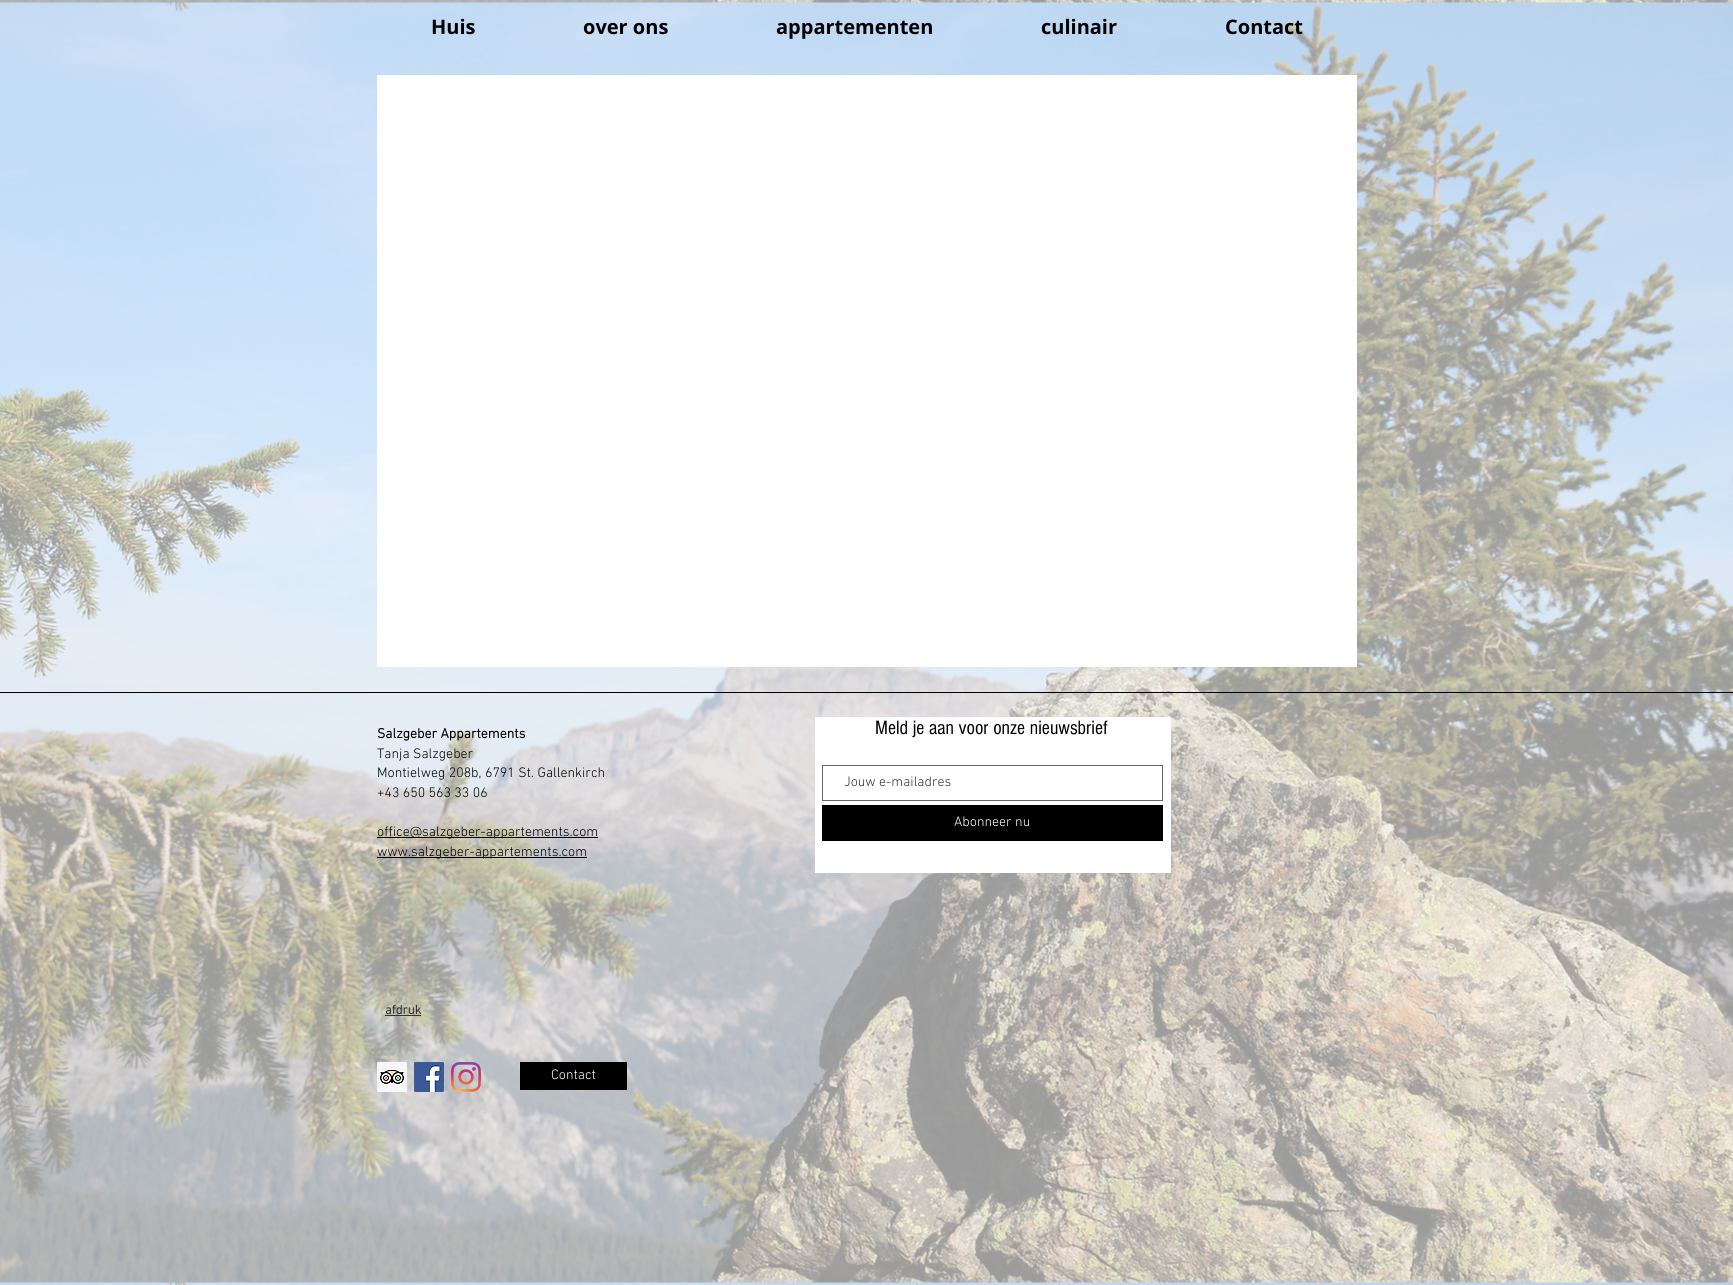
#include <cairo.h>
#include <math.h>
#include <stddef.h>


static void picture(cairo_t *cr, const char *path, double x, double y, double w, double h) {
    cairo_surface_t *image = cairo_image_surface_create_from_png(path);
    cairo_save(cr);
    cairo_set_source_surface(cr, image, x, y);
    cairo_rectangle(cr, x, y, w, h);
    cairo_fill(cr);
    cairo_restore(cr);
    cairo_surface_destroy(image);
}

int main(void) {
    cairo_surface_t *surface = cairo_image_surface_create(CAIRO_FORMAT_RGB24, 1733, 1285);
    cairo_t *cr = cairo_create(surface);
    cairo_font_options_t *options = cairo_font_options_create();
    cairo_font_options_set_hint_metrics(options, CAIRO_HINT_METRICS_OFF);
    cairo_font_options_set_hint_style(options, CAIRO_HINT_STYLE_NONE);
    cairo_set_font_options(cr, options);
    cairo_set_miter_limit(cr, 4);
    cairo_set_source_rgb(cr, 1, 1, 1);
    cairo_paint(cr);
    picture(cr, "img1.png", 0, 0, 1733, 1285);
    cairo_select_font_face(cr, "Open Sans", CAIRO_FONT_SLANT_NORMAL, CAIRO_FONT_WEIGHT_BOLD);
    cairo_set_font_size(cr, 20);
    cairo_set_source_rgb(cr, 0, 0, 0);
    cairo_move_to(cr, 431, 34);
    cairo_show_text(cr, "Huis");
    cairo_move_to(cr, 583, 34);
    cairo_show_text(cr, "over ons");
    cairo_move_to(cr, 776, 34);
    cairo_show_text(cr, "appartementen");
    cairo_move_to(cr, 1041, 34);
    cairo_show_text(cr, "culinair");
    cairo_move_to(cr, 1225, 34);
    cairo_show_text(cr, "Contact");
    cairo_set_source_rgb(cr, 1, 1, 1);
    cairo_rectangle(cr, 377, 75, 980, 592);
    cairo_fill(cr);
    cairo_set_source_rgb(cr, 0, 0, 0);
    cairo_rectangle(cr, 0, 692, 1733, 1);
    cairo_fill(cr);
    cairo_select_font_face(cr, "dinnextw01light", CAIRO_FONT_SLANT_NORMAL, CAIRO_FONT_WEIGHT_BOLD);
    cairo_set_font_size(cr, 14);
    cairo_move_to(cr, 377, 738);
    cairo_show_text(cr, "Salzgeber Appartements");
    cairo_select_font_face(cr, "dinnextw01light Light", CAIRO_FONT_SLANT_NORMAL, CAIRO_FONT_WEIGHT_NORMAL);
    cairo_move_to(cr, 377, 758);
    cairo_show_text(cr, "Tanja Salzgeber");
    cairo_move_to(cr, 377, 777);
    cairo_show_text(cr, "Montielweg 208b, 6791 St. Gallenkirch");
    cairo_move_to(cr, 377, 797);
    cairo_show_text(cr, "+43 650 563 33 06");
    cairo_rectangle(cr, 377, 837, 221, 1);
    cairo_fill(cr);
    cairo_move_to(cr, 377, 836);
    cairo_show_text(cr, "office@salzgeber-appartements.com");
    cairo_rectangle(cr, 377, 857, 210, 1);
    cairo_fill(cr);
    cairo_move_to(cr, 377, 856);
    cairo_show_text(cr, "www.salzgeber-appartements.com");
    cairo_set_source_rgb(cr, 1, 1, 1);
    cairo_rectangle(cr, 815, 717, 356, 156);
    cairo_fill(cr);
    cairo_select_font_face(cr, "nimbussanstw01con", CAIRO_FONT_SLANT_NORMAL, CAIRO_FONT_WEIGHT_NORMAL);
    cairo_set_font_size(cr, 20);
    cairo_set_source_rgb(cr, 0, 0, 0);
    cairo_move_to(cr, 875, 734);
    cairo_show_text(cr, "Meld je aan voor onze nieuwsbrief");
    cairo_rectangle(cr, 822.5, 765.5, 340, 35);
    cairo_set_source_rgb(cr, 0.4, 0.4, 0.4);
    cairo_set_line_width(cr, 1);
    cairo_stroke(cr);
    cairo_select_font_face(cr, "dinnextw01light Light", CAIRO_FONT_SLANT_NORMAL, CAIRO_FONT_WEIGHT_NORMAL);
    cairo_set_font_size(cr, 14);
    cairo_set_source_rgb(cr, 0.2, 0.2, 0.2);
    cairo_move_to(cr, 844, 786);
    cairo_show_text(cr, "Jouw e-mailadres");
    cairo_set_source_rgb(cr, 0, 0, 0);
    cairo_rectangle(cr, 822, 805, 341, 36);
    cairo_fill(cr);
    cairo_set_source_rgb(cr, 1, 1, 1);
    cairo_move_to(cr, 954, 826);
    cairo_show_text(cr, "Abonneer nu");
    cairo_select_font_face(cr, "dinnextw01light", CAIRO_FONT_SLANT_NORMAL, CAIRO_FONT_WEIGHT_BOLD);
    cairo_set_font_size(cr, 13);
    cairo_set_source_rgb(cr, 0.2, 0.2, 0.2);
    cairo_move_to(cr, 385, 1014);
    cairo_show_text(cr, "afdruk");
    cairo_rectangle(cr, 385, 1015, 36, 1);
    cairo_fill(cr);
    picture(cr, "img2.png", 377, 1062, 30, 30);
    picture(cr, "img3.png", 414, 1062, 30, 30);
    picture(cr, "img4.png", 451, 1062, 30, 30);
    cairo_set_source_rgb(cr, 0, 0, 0);
    cairo_rectangle(cr, 520, 1062, 107, 28);
    cairo_fill(cr);
    cairo_select_font_face(cr, "dinnextw01light Light", CAIRO_FONT_SLANT_NORMAL, CAIRO_FONT_WEIGHT_NORMAL);
    cairo_set_font_size(cr, 14);
    cairo_set_source_rgb(cr, 1, 1, 1);
    cairo_move_to(cr, 551, 1079);
    cairo_show_text(cr, "Contact");
    cairo_surface_write_to_png(surface, "page.png");
    cairo_font_options_destroy(options);
    cairo_destroy(cr);
    cairo_surface_destroy(surface);
    return 0;
}
